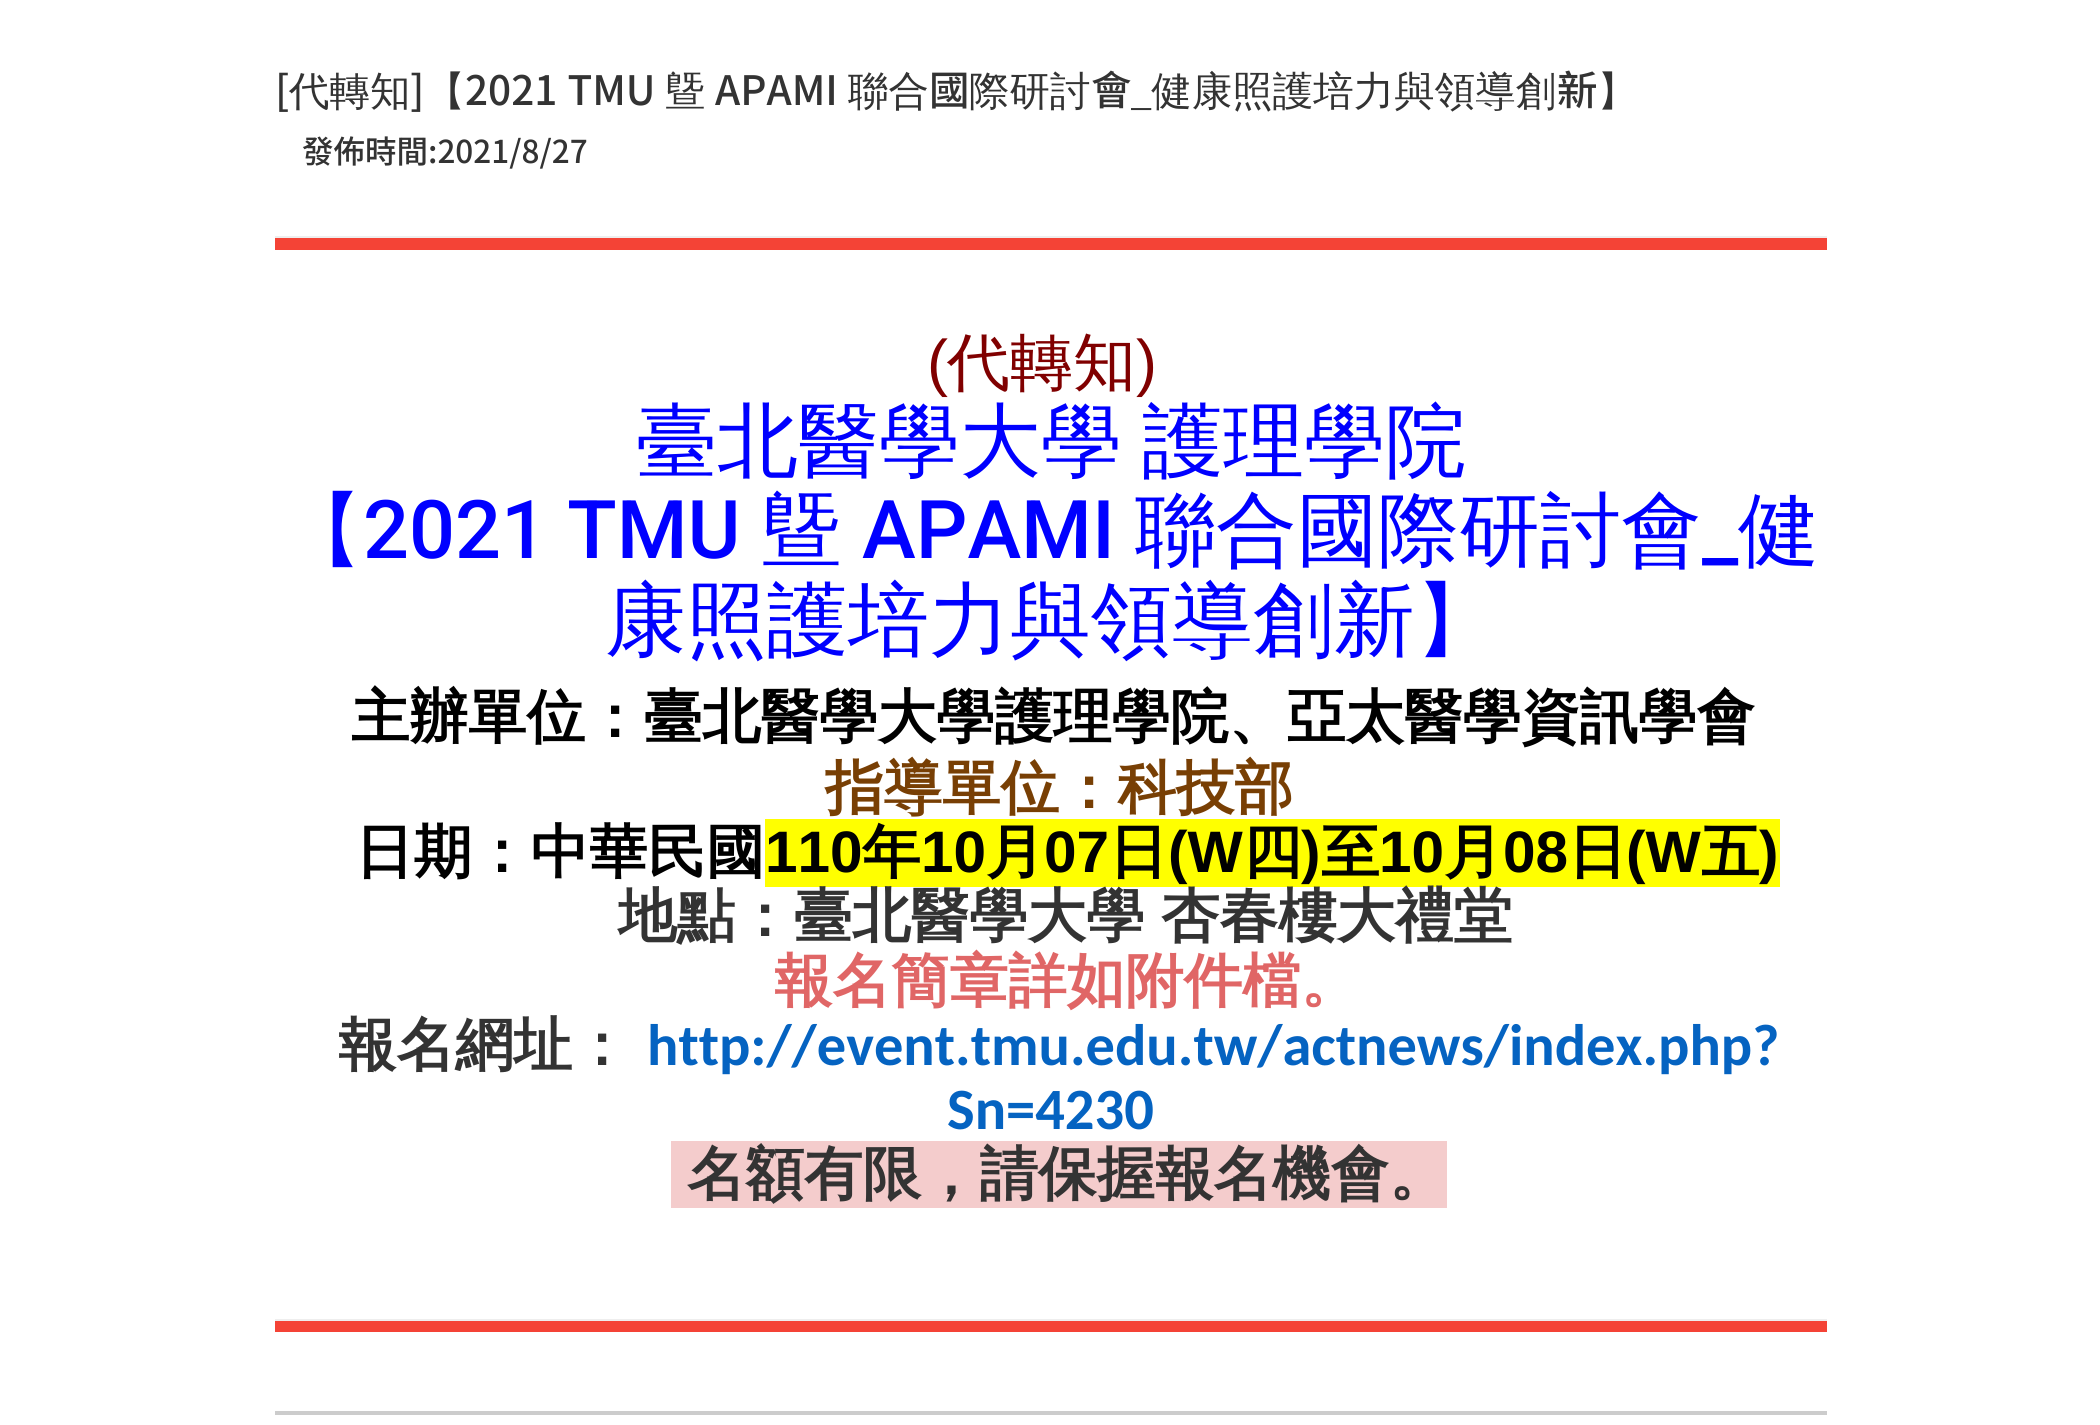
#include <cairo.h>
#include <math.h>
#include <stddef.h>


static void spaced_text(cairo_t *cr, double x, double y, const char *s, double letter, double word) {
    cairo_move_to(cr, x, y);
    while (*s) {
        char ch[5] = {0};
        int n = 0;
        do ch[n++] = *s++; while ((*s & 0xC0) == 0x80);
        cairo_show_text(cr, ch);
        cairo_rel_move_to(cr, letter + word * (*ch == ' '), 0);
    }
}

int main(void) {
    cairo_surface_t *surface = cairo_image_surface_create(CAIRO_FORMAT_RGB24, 2100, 1425);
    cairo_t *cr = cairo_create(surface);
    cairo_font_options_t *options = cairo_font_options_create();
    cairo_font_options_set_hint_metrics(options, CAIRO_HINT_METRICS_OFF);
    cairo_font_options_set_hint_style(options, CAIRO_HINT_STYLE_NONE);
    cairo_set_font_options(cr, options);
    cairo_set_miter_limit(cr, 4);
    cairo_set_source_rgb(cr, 1, 1, 1);
    cairo_paint(cr);
    cairo_select_font_face(cr, "Noto Sans TC Medium", CAIRO_FONT_SLANT_NORMAL, CAIRO_FONT_WEIGHT_NORMAL);
    cairo_set_font_size(cr, 40.5);
    cairo_set_source_rgb(cr, 0.2, 0.2, 0.2);
    cairo_move_to(cr, 275, 105);
    cairo_show_text(cr, "[");
    cairo_select_font_face(cr, "WenQuanYi Zen Hei Medium", CAIRO_FONT_SLANT_NORMAL, CAIRO_FONT_WEIGHT_NORMAL);
    cairo_move_to(cr, 289, 105);
    cairo_show_text(cr, "代轉知");
    cairo_select_font_face(cr, "Noto Sans TC Medium", CAIRO_FONT_SLANT_NORMAL, CAIRO_FONT_WEIGHT_NORMAL);
    cairo_move_to(cr, 410, 105);
    cairo_show_text(cr, "]");
    cairo_select_font_face(cr, "WenQuanYi Zen Hei Medium", CAIRO_FONT_SLANT_NORMAL, CAIRO_FONT_WEIGHT_NORMAL);
    cairo_move_to(cr, 425, 105);
    cairo_show_text(cr, "【");
    cairo_select_font_face(cr, "Noto Sans TC Medium", CAIRO_FONT_SLANT_NORMAL, CAIRO_FONT_WEIGHT_NORMAL);
    spaced_text(cr, 465, 105, "2021 TMU", 0, 1);
    cairo_select_font_face(cr, "WenQuanYi Zen Hei Medium", CAIRO_FONT_SLANT_NORMAL, CAIRO_FONT_WEIGHT_NORMAL);
    cairo_move_to(cr, 665, 105);
    cairo_show_text(cr, "曁");
    cairo_select_font_face(cr, "Noto Sans TC Medium", CAIRO_FONT_SLANT_NORMAL, CAIRO_FONT_WEIGHT_NORMAL);
    cairo_move_to(cr, 715, 105);
    cairo_show_text(cr, "APAMI");
    cairo_select_font_face(cr, "WenQuanYi Zen Hei Medium", CAIRO_FONT_SLANT_NORMAL, CAIRO_FONT_WEIGHT_NORMAL);
    cairo_move_to(cr, 848, 105);
    cairo_show_text(cr, "聯合");
    cairo_select_font_face(cr, "Noto Sans TC Medium", CAIRO_FONT_SLANT_NORMAL, CAIRO_FONT_WEIGHT_NORMAL);
    cairo_move_to(cr, 929, 105);
    cairo_show_text(cr, "國");
    cairo_select_font_face(cr, "WenQuanYi Zen Hei Medium", CAIRO_FONT_SLANT_NORMAL, CAIRO_FONT_WEIGHT_NORMAL);
    cairo_move_to(cr, 969, 105);
    cairo_show_text(cr, "際研討");
    cairo_select_font_face(cr, "Noto Sans TC Medium", CAIRO_FONT_SLANT_NORMAL, CAIRO_FONT_WEIGHT_NORMAL);
    cairo_move_to(cr, 1091, 105);
    cairo_show_text(cr, "會");
    cairo_select_font_face(cr, "WenQuanYi Zen Hei Medium", CAIRO_FONT_SLANT_NORMAL, CAIRO_FONT_WEIGHT_NORMAL);
    cairo_move_to(cr, 1131, 105);
    cairo_show_text(cr, "_健康照護培力與領導創");
    cairo_select_font_face(cr, "Noto Sans TC Medium", CAIRO_FONT_SLANT_NORMAL, CAIRO_FONT_WEIGHT_NORMAL);
    cairo_move_to(cr, 1557, 105);
    cairo_show_text(cr, "新");
    cairo_select_font_face(cr, "WenQuanYi Zen Hei Medium", CAIRO_FONT_SLANT_NORMAL, CAIRO_FONT_WEIGHT_NORMAL);
    cairo_move_to(cr, 1597, 105);
    cairo_show_text(cr, "】");
    cairo_select_font_face(cr, "Noto Sans TC Medium", CAIRO_FONT_SLANT_NORMAL, CAIRO_FONT_WEIGHT_NORMAL);
    cairo_set_font_size(cr, 31.5);
    cairo_move_to(cr, 302, 163);
    cairo_show_text(cr, "發佈時間:2021/8/27");
    cairo_set_source_rgb(cr, 0.957, 0.263, 0.212);
    cairo_rectangle(cr, 275, 238, 1552, 12);
    cairo_fill(cr);
    cairo_set_source_rgb(cr, 0.933, 0.933, 0.933);
    cairo_rectangle(cr, 275, 236, 1552, 2);
    cairo_fill(cr);
    cairo_select_font_face(cr, "Liberation Sans", CAIRO_FONT_SLANT_NORMAL, CAIRO_FONT_WEIGHT_NORMAL);
    cairo_set_font_size(cr, 63);
    cairo_set_source_rgb(cr, 0.502, 0, 0);
    cairo_move_to(cr, 927, 384);
    cairo_show_text(cr, "(");
    cairo_select_font_face(cr, "WenQuanYi Zen Hei Medium", CAIRO_FONT_SLANT_NORMAL, CAIRO_FONT_WEIGHT_NORMAL);
    cairo_move_to(cr, 947, 384);
    cairo_show_text(cr, "代轉知");
    cairo_select_font_face(cr, "Liberation Sans", CAIRO_FONT_SLANT_NORMAL, CAIRO_FONT_WEIGHT_NORMAL);
    cairo_move_to(cr, 1136, 384);
    cairo_show_text(cr, ")");
    cairo_select_font_face(cr, "WenQuanYi Zen Hei Medium", CAIRO_FONT_SLANT_NORMAL, CAIRO_FONT_WEIGHT_NORMAL);
    cairo_set_font_size(cr, 81);
    cairo_set_source_rgb(cr, 0, 0, 1);
    spaced_text(cr, 636, 469, "臺北醫學大學 護理學院", 0, -4);
    cairo_move_to(cr, 282, 558);
    cairo_show_text(cr, "【");
    cairo_select_font_face(cr, "Roboto Medium", CAIRO_FONT_SLANT_NORMAL, CAIRO_FONT_WEIGHT_NORMAL);
    cairo_move_to(cr, 363, 558);
    cairo_show_text(cr, "2021 TMU");
    cairo_select_font_face(cr, "WenQuanYi Zen Hei Medium", CAIRO_FONT_SLANT_NORMAL, CAIRO_FONT_WEIGHT_NORMAL);
    cairo_move_to(cr, 761, 558);
    cairo_show_text(cr, "曁");
    cairo_select_font_face(cr, "Roboto Medium", CAIRO_FONT_SLANT_NORMAL, CAIRO_FONT_WEIGHT_NORMAL);
    cairo_move_to(cr, 862, 558);
    cairo_show_text(cr, "APAMI");
    cairo_select_font_face(cr, "WenQuanYi Zen Hei Medium", CAIRO_FONT_SLANT_NORMAL, CAIRO_FONT_WEIGHT_NORMAL);
    cairo_move_to(cr, 1135, 558);
    cairo_show_text(cr, "聯合國際研討會");
    cairo_select_font_face(cr, "Roboto Medium", CAIRO_FONT_SLANT_NORMAL, CAIRO_FONT_WEIGHT_NORMAL);
    cairo_move_to(cr, 1702, 558);
    cairo_show_text(cr, "_");
    cairo_select_font_face(cr, "WenQuanYi Zen Hei Medium", CAIRO_FONT_SLANT_NORMAL, CAIRO_FONT_WEIGHT_NORMAL);
    cairo_move_to(cr, 1738, 558);
    cairo_show_text(cr, "健");
    cairo_move_to(cr, 605, 648);
    cairo_show_text(cr, "康照護培力與領導創新】");
    cairo_select_font_face(cr, "WenQuanYi Zen Hei", CAIRO_FONT_SLANT_NORMAL, CAIRO_FONT_WEIGHT_BOLD);
    cairo_set_font_size(cr, 58.5);
    cairo_set_source_rgb(cr, 0, 0, 0);
    cairo_move_to(cr, 351, 737);
    cairo_show_text(cr, "主辦單位：臺北醫學大學護理學院、亞太醫學資訊學會");
    cairo_set_source_rgb(cr, 0.471, 0.247, 0.016);
    cairo_move_to(cr, 825, 808);
    cairo_show_text(cr, "指導單位：科技部");
    cairo_set_source_rgb(cr, 0, 0, 0);
    cairo_move_to(cr, 355, 872);
    cairo_show_text(cr, "日期：中華民國");
    cairo_set_source_rgb(cr, 1, 1, 0);
    cairo_rectangle(cr, 765, 819, 1015, 68);
    cairo_fill(cr);
    cairo_select_font_face(cr, "Liberation Sans", CAIRO_FONT_SLANT_NORMAL, CAIRO_FONT_WEIGHT_BOLD);
    cairo_set_source_rgb(cr, 0, 0, 0);
    cairo_move_to(cr, 765, 872);
    cairo_show_text(cr, "110");
    cairo_select_font_face(cr, "WenQuanYi Zen Hei", CAIRO_FONT_SLANT_NORMAL, CAIRO_FONT_WEIGHT_BOLD);
    cairo_move_to(cr, 862, 872);
    cairo_show_text(cr, "年");
    cairo_select_font_face(cr, "Liberation Sans", CAIRO_FONT_SLANT_NORMAL, CAIRO_FONT_WEIGHT_BOLD);
    cairo_move_to(cr, 921, 872);
    cairo_show_text(cr, "10");
    cairo_select_font_face(cr, "WenQuanYi Zen Hei", CAIRO_FONT_SLANT_NORMAL, CAIRO_FONT_WEIGHT_BOLD);
    cairo_move_to(cr, 986, 872);
    cairo_show_text(cr, "月");
    cairo_select_font_face(cr, "Liberation Sans", CAIRO_FONT_SLANT_NORMAL, CAIRO_FONT_WEIGHT_BOLD);
    cairo_move_to(cr, 1044, 872);
    cairo_show_text(cr, "07");
    cairo_select_font_face(cr, "WenQuanYi Zen Hei", CAIRO_FONT_SLANT_NORMAL, CAIRO_FONT_WEIGHT_BOLD);
    cairo_move_to(cr, 1109, 872);
    cairo_show_text(cr, "日");
    cairo_select_font_face(cr, "Liberation Sans", CAIRO_FONT_SLANT_NORMAL, CAIRO_FONT_WEIGHT_BOLD);
    cairo_move_to(cr, 1168, 872);
    cairo_show_text(cr, "(W");
    cairo_select_font_face(cr, "WenQuanYi Zen Hei", CAIRO_FONT_SLANT_NORMAL, CAIRO_FONT_WEIGHT_BOLD);
    cairo_move_to(cr, 1243, 872);
    cairo_show_text(cr, "四");
    cairo_select_font_face(cr, "Liberation Sans", CAIRO_FONT_SLANT_NORMAL, CAIRO_FONT_WEIGHT_BOLD);
    cairo_move_to(cr, 1301, 872);
    cairo_show_text(cr, ")");
    cairo_select_font_face(cr, "WenQuanYi Zen Hei", CAIRO_FONT_SLANT_NORMAL, CAIRO_FONT_WEIGHT_BOLD);
    cairo_move_to(cr, 1321, 872);
    cairo_show_text(cr, "至");
    cairo_select_font_face(cr, "Liberation Sans", CAIRO_FONT_SLANT_NORMAL, CAIRO_FONT_WEIGHT_BOLD);
    cairo_move_to(cr, 1379, 872);
    cairo_show_text(cr, "10");
    cairo_select_font_face(cr, "WenQuanYi Zen Hei", CAIRO_FONT_SLANT_NORMAL, CAIRO_FONT_WEIGHT_BOLD);
    cairo_move_to(cr, 1444, 872);
    cairo_show_text(cr, "月");
    cairo_select_font_face(cr, "Liberation Sans", CAIRO_FONT_SLANT_NORMAL, CAIRO_FONT_WEIGHT_BOLD);
    cairo_move_to(cr, 1503, 872);
    cairo_show_text(cr, "08");
    cairo_select_font_face(cr, "WenQuanYi Zen Hei", CAIRO_FONT_SLANT_NORMAL, CAIRO_FONT_WEIGHT_BOLD);
    cairo_move_to(cr, 1568, 872);
    cairo_show_text(cr, "日");
    cairo_select_font_face(cr, "Liberation Sans", CAIRO_FONT_SLANT_NORMAL, CAIRO_FONT_WEIGHT_BOLD);
    cairo_move_to(cr, 1626, 872);
    cairo_show_text(cr, "(W");
    cairo_select_font_face(cr, "WenQuanYi Zen Hei", CAIRO_FONT_SLANT_NORMAL, CAIRO_FONT_WEIGHT_BOLD);
    cairo_move_to(cr, 1701, 872);
    cairo_show_text(cr, "五");
    cairo_select_font_face(cr, "Liberation Sans", CAIRO_FONT_SLANT_NORMAL, CAIRO_FONT_WEIGHT_BOLD);
    cairo_move_to(cr, 1759, 872);
    cairo_show_text(cr, ")");
    cairo_select_font_face(cr, "WenQuanYi Zen Hei", CAIRO_FONT_SLANT_NORMAL, CAIRO_FONT_WEIGHT_BOLD);
    cairo_set_source_rgb(cr, 0.2, 0.2, 0.2);
    spaced_text(cr, 618, 936, "地點：臺北醫學大學 杏春樓大禮堂", 0, -1);
    cairo_set_source_rgb(cr, 0.878, 0.4, 0.4);
    cairo_move_to(cr, 774, 1001);
    cairo_show_text(cr, "報名簡章詳如附件檔。");
    cairo_set_source_rgb(cr, 0.2, 0.2, 0.2);
    cairo_move_to(cr, 338, 1065);
    cairo_show_text(cr, "報名網址：");
    cairo_select_font_face(cr, "Carlito", CAIRO_FONT_SLANT_NORMAL, CAIRO_FONT_WEIGHT_BOLD);
    cairo_set_source_rgb(cr, 0.02, 0.388, 0.757);
    cairo_move_to(cr, 647, 1065);
    cairo_show_text(cr, "http://event.tmu.edu.tw/actnews/index.php?");
    cairo_move_to(cr, 947, 1129);
    cairo_show_text(cr, "Sn=4230");
    cairo_set_source_rgb(cr, 0.957, 0.8, 0.8);
    cairo_rectangle(cr, 671, 1141, 776, 67);
    cairo_fill(cr);
    cairo_select_font_face(cr, "WenQuanYi Zen Hei", CAIRO_FONT_SLANT_NORMAL, CAIRO_FONT_WEIGHT_BOLD);
    cairo_set_source_rgb(cr, 0.2, 0.2, 0.2);
    cairo_move_to(cr, 687, 1194);
    cairo_show_text(cr, "名額有限，請保握報名機會。");
    cairo_set_source_rgb(cr, 0.957, 0.263, 0.212);
    cairo_rectangle(cr, 275, 1321, 1552, 11);
    cairo_fill(cr);
    cairo_set_source_rgb(cr, 0.933, 0.933, 0.933);
    cairo_rectangle(cr, 275, 1319, 1552, 2);
    cairo_fill(cr);
    cairo_set_source_rgb(cr, 0.8, 0.8, 0.8);
    cairo_rectangle(cr, 275, 1411, 1552, 4);
    cairo_fill(cr);
    cairo_surface_write_to_png(surface, "page.png");
    cairo_font_options_destroy(options);
    cairo_destroy(cr);
    cairo_surface_destroy(surface);
    return 0;
}
